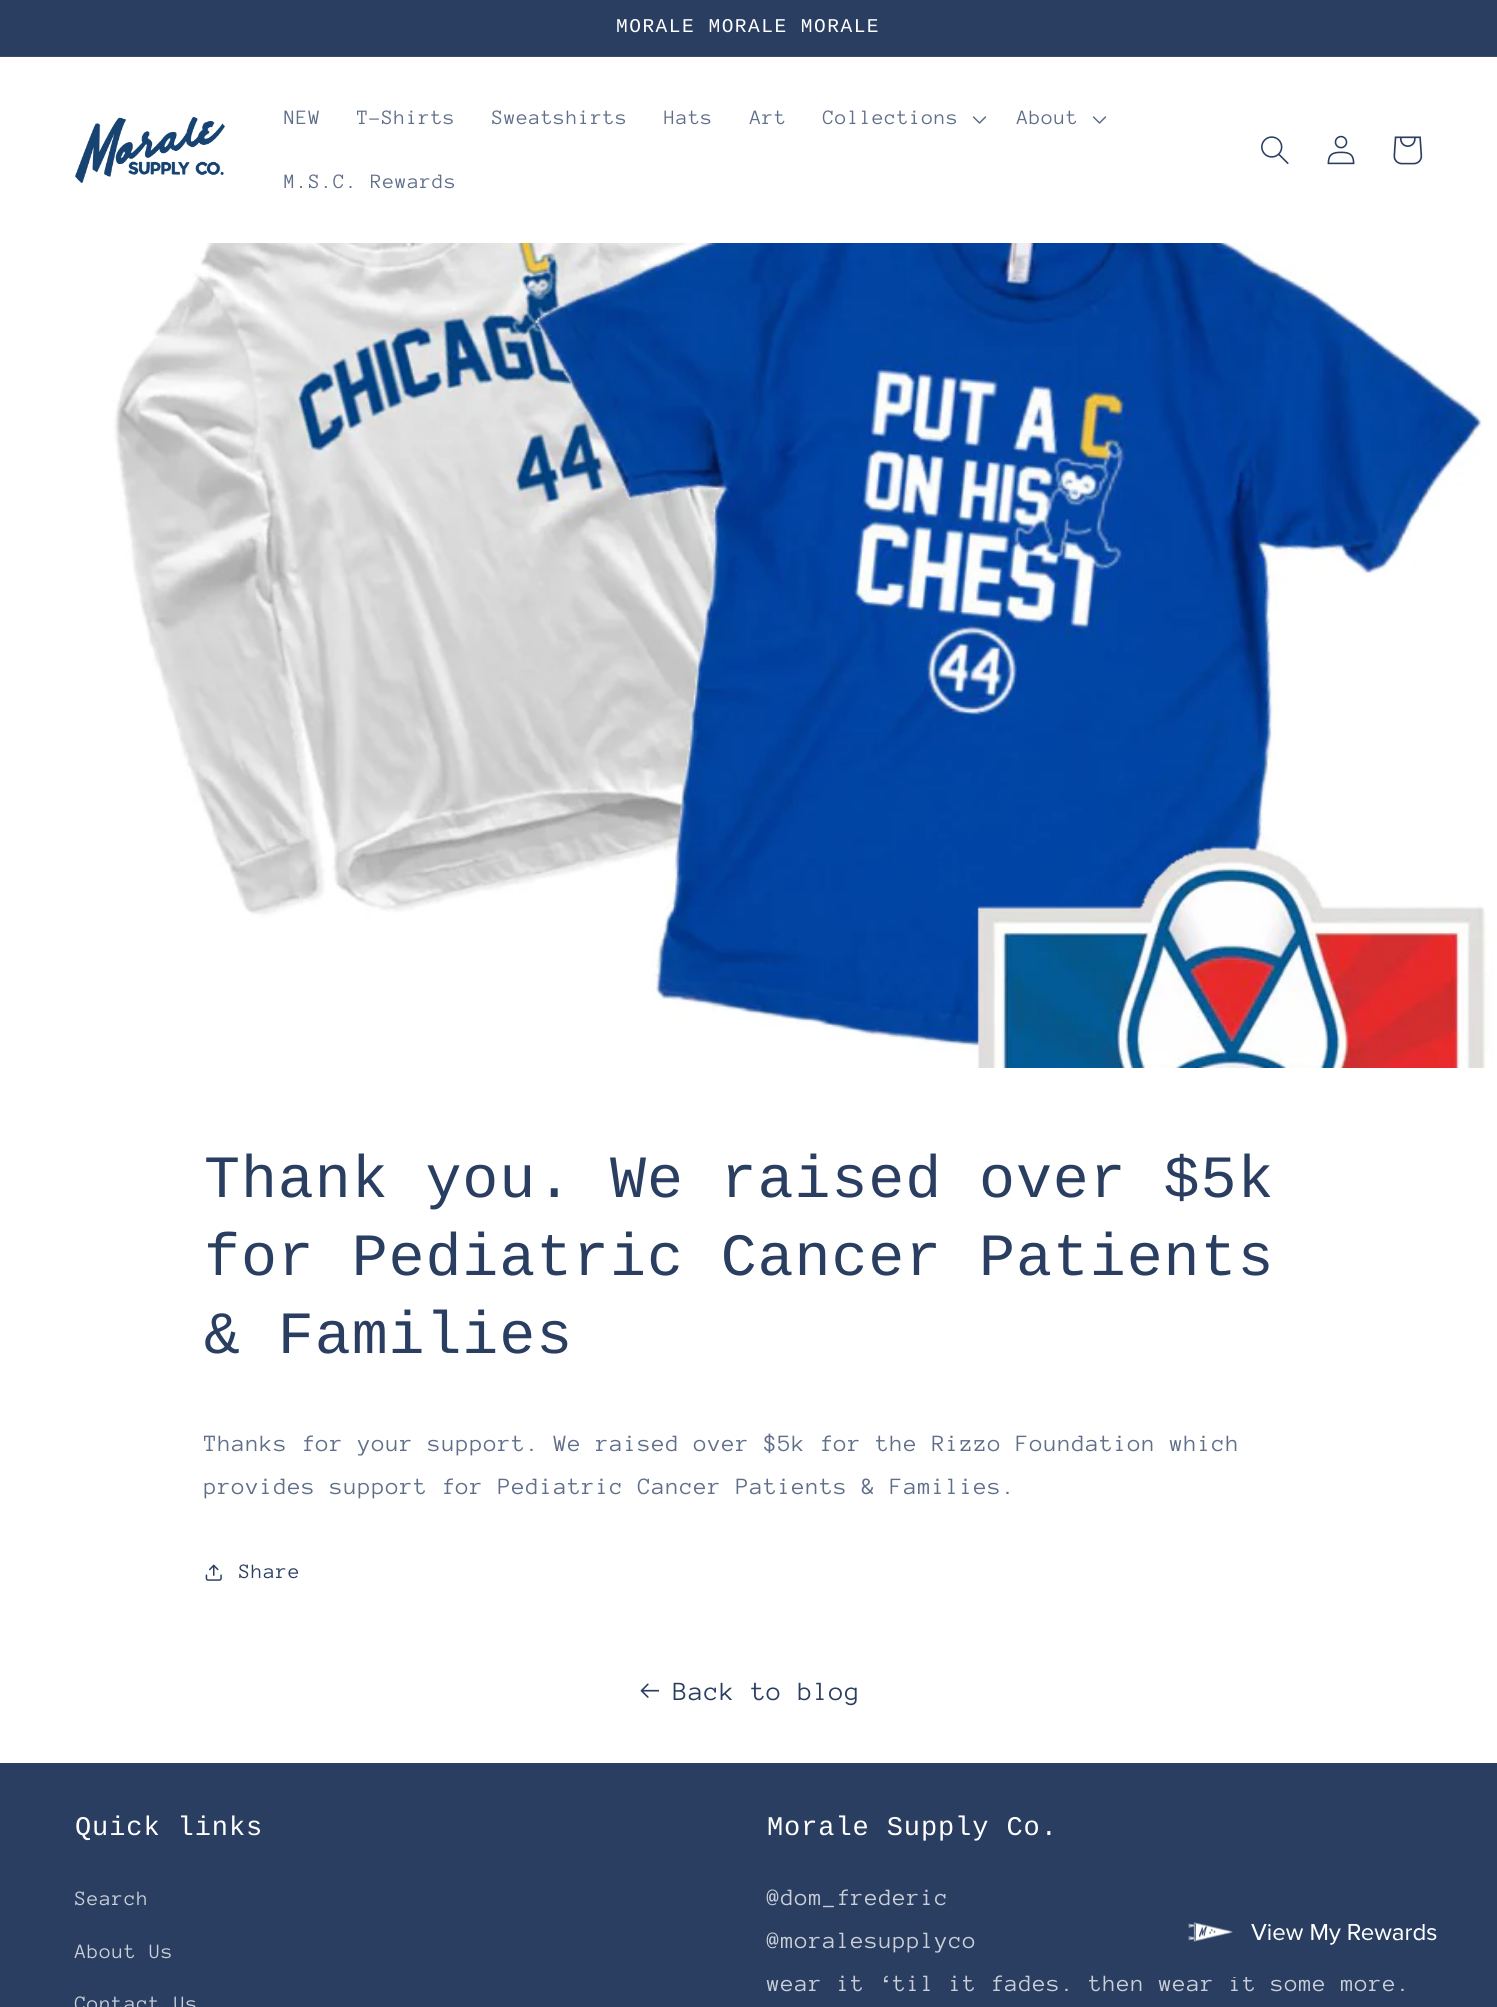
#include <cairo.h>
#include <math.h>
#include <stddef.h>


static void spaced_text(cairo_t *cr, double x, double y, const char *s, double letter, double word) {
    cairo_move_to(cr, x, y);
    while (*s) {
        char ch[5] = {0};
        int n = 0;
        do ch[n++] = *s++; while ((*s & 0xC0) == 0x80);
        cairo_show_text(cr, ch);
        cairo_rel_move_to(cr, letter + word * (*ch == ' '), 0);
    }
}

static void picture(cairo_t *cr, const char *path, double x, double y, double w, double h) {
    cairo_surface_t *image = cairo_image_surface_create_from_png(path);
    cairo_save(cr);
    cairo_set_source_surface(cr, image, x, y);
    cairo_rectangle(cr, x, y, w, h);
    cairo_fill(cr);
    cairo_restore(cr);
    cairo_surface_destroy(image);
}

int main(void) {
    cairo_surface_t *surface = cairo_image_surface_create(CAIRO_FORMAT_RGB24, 1497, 2007);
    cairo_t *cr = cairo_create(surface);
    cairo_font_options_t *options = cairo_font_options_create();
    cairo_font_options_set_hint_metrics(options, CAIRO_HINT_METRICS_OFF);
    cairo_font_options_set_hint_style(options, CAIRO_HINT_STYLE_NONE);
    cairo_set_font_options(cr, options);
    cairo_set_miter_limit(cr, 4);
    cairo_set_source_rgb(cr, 1, 1, 1);
    cairo_paint(cr);
    cairo_set_source_rgb(cr, 0.165, 0.243, 0.38);
    cairo_rectangle(cr, 0, 0, 1497, 56);
    cairo_fill(cr);
    cairo_set_source_rgb(cr, 0.231, 0.302, 0.427);
    cairo_rectangle(cr, 0, 56, 1497, 1);
    cairo_fill(cr);
    cairo_select_font_face(cr, "Liberation Mono", CAIRO_FONT_SLANT_NORMAL, CAIRO_FONT_WEIGHT_NORMAL);
    cairo_set_font_size(cr, 19.5);
    cairo_set_source_rgb(cr, 1, 1, 1);
    spaced_text(cr, 616, 32, "MORALE MORALE MORALE", 1.5, 0);
    picture(cr, "img1.png", 75, 117, 150, 66);
    cairo_select_font_face(cr, "Anonymous Pro", CAIRO_FONT_SLANT_NORMAL, CAIRO_FONT_WEIGHT_NORMAL);
    cairo_set_font_size(cr, 21);
    cairo_set_source_rgb(cr, 0.373, 0.431, 0.537);
    spaced_text(cr, 284, 124, "NEW", 0.9, 0);
    spaced_text(cr, 357, 124, "T-Shirts", 0.9, 0);
    spaced_text(cr, 492, 124, "Sweatshirts", 0.9, 0);
    spaced_text(cr, 664, 124, "Hats", 0.9, 0);
    spaced_text(cr, 750, 124, "Art", 0.9, 0);
    spaced_text(cr, 823, 124, "Collections", 0.9, 0);
    picture(cr, "img2.png", 972, 116, 15, 8);
    spaced_text(cr, 1017, 124, "About", 0.9, 0);
    picture(cr, "img2.png", 1092, 116, 15, 8);
    spaced_text(cr, 284, 188, "M.S.C. Rewards", 0.9, 0);
    picture(cr, "img3.png", 1261, 136, 28, 28);
    picture(cr, "img4.png", 1327, 135, 28, 30);
    picture(cr, "img5.png", 1393, 136, 30, 29);
    picture(cr, "img6.png", 0, 243, 1497, 825);
    cairo_select_font_face(cr, "Liberation Mono", CAIRO_FONT_SLANT_NORMAL, CAIRO_FONT_WEIGHT_NORMAL);
    cairo_set_font_size(cr, 60);
    cairo_set_source_rgb(cr, 0.165, 0.243, 0.38);
    spaced_text(cr, 204, 1197, "Thank you. We raised over $5k", 0.9, 0);
    spaced_text(cr, 204, 1275, "for Pediatric Cancer Patients", 0.9, 0);
    spaced_text(cr, 204, 1353, "& Families", 0.9, 0);
    cairo_select_font_face(cr, "Anonymous Pro", CAIRO_FONT_SLANT_NORMAL, CAIRO_FONT_WEIGHT_NORMAL);
    cairo_set_font_size(cr, 24);
    cairo_set_source_rgb(cr, 0.373, 0.431, 0.537);
    spaced_text(cr, 204, 1451, "Thanks for your support. We raised over $5k for the Rizzo Foundation which", 0.9, 0);
    spaced_text(cr, 204, 1494, "provides support for Pediatric Cancer Patients & Families.", 0.9, 0);
    picture(cr, "img7.png", 205, 1564, 17, 17);
    cairo_set_font_size(cr, 21);
    cairo_set_source_rgb(cr, 0.165, 0.243, 0.38);
    spaced_text(cr, 239, 1578, "Share", 0.9, 0);
    picture(cr, "img8.png", 640, 1683, 19, 15);
    cairo_set_font_size(cr, 27);
    spaced_text(cr, 673, 1700, "Back to blog", 0.9, 0);
    cairo_rectangle(cr, 0, 1763, 1497, 244);
    cairo_fill(cr);
    cairo_select_font_face(cr, "Liberation Mono", CAIRO_FONT_SLANT_NORMAL, CAIRO_FONT_WEIGHT_NORMAL);
    cairo_set_source_rgb(cr, 1, 1, 1);
    spaced_text(cr, 75, 1835, "Quick links", 0.9, 0);
    cairo_select_font_face(cr, "Anonymous Pro", CAIRO_FONT_SLANT_NORMAL, CAIRO_FONT_WEIGHT_NORMAL);
    cairo_set_font_size(cr, 21);
    cairo_set_source_rgb(cr, 0.792, 0.812, 0.847);
    spaced_text(cr, 75, 1905, "Search", 0.9, 0);
    spaced_text(cr, 75, 1958, "About Us", 0.9, 0);
    spaced_text(cr, 75, 2010, "Contact Us", 0.9, 0);
    cairo_select_font_face(cr, "Liberation Mono", CAIRO_FONT_SLANT_NORMAL, CAIRO_FONT_WEIGHT_NORMAL);
    cairo_set_font_size(cr, 27);
    cairo_set_source_rgb(cr, 1, 1, 1);
    spaced_text(cr, 767, 1835, "Morale Supply Co.", 0.9, 0);
    cairo_select_font_face(cr, "Anonymous Pro", CAIRO_FONT_SLANT_NORMAL, CAIRO_FONT_WEIGHT_NORMAL);
    cairo_set_font_size(cr, 24);
    cairo_set_source_rgb(cr, 0.792, 0.812, 0.847);
    spaced_text(cr, 767, 1905, "@dom_frederic", 0.9, 0);
    spaced_text(cr, 767, 1948, "@moralesupplyco", 0.9, 0);
    spaced_text(cr, 767, 1991, "wear it ‘til it fades. then wear it some more.", 0.9, 0);
    picture(cr, "img9.png", 1188, 1922, 249, 55);
    cairo_surface_write_to_png(surface, "page.png");
    cairo_font_options_destroy(options);
    cairo_destroy(cr);
    cairo_surface_destroy(surface);
    return 0;
}
